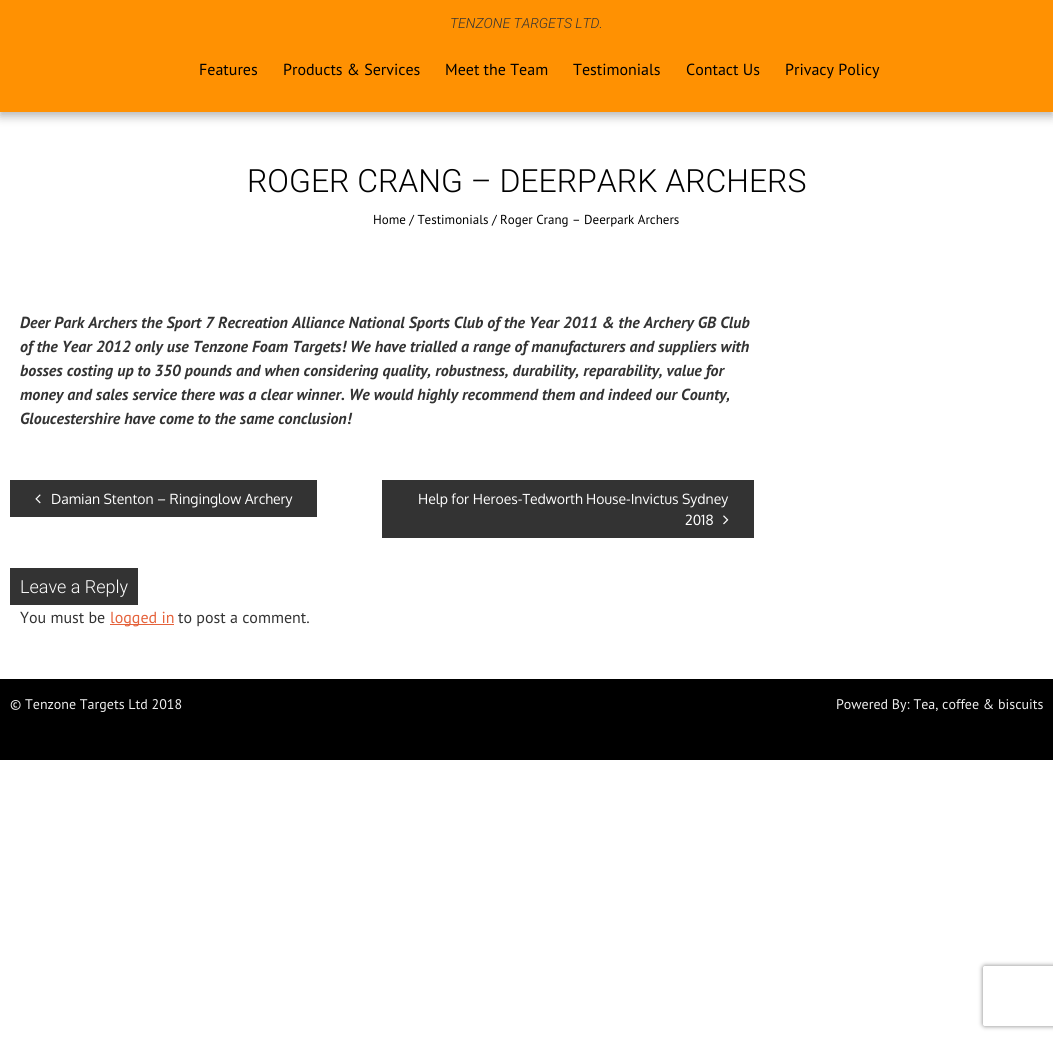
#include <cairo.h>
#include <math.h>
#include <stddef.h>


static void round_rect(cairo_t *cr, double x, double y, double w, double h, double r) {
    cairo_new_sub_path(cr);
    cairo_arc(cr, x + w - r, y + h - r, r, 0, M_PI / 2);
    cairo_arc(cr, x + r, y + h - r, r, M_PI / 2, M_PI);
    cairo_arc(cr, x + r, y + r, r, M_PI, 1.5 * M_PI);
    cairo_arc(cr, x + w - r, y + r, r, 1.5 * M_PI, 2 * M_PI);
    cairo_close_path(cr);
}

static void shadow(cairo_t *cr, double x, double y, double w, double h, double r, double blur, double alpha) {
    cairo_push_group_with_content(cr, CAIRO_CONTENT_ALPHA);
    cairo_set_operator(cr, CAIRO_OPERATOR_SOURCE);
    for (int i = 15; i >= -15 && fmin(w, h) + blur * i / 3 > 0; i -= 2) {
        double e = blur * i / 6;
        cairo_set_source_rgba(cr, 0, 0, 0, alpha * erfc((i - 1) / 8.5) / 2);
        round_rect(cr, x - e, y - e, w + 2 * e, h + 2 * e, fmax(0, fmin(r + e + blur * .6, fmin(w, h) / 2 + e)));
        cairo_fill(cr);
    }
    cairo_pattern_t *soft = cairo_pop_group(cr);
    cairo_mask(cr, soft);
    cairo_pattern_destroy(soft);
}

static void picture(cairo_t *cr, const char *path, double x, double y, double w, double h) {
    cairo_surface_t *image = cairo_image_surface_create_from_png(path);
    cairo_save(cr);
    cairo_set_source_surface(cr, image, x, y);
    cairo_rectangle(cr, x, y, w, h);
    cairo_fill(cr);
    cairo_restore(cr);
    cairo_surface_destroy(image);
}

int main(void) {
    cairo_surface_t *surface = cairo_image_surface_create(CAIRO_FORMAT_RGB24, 1053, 1040);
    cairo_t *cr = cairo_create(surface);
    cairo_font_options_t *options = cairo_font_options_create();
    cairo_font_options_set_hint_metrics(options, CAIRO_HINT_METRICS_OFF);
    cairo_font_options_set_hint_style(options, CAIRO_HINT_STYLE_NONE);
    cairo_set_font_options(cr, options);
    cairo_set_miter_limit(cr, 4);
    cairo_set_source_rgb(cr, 1, 1, 1);
    cairo_paint(cr);
    cairo_set_source_rgb(cr, 0, 0, 0);
    shadow(cr, 0, 4, 1053, 112, 0, 5, 0.3);
    cairo_set_source_rgb(cr, 1, 0.569, 0.008);
    cairo_rectangle(cr, 0, 0, 1053, 112);
    cairo_fill(cr);
    cairo_select_font_face(cr, "Roboto Light", CAIRO_FONT_SLANT_ITALIC, CAIRO_FONT_WEIGHT_NORMAL);
    cairo_set_font_size(cr, 14);
    cairo_set_source_rgb(cr, 0.2, 0.2, 0.2);
    cairo_move_to(cr, 450, 28);
    cairo_show_text(cr, "TENZONE TARGETS LTD.");
    cairo_select_font_face(cr, "PT Sans", CAIRO_FONT_SLANT_NORMAL, CAIRO_FONT_WEIGHT_NORMAL);
    cairo_set_font_size(cr, 16);
    cairo_set_source_rgb(cr, 0, 0, 0);
    cairo_move_to(cr, 199, 75);
    cairo_show_text(cr, "Features");
    cairo_move_to(cr, 283, 75);
    cairo_show_text(cr, "Products & Services");
    cairo_move_to(cr, 445, 75);
    cairo_show_text(cr, "Meet the Team");
    cairo_move_to(cr, 573, 75);
    cairo_show_text(cr, "Testimonials");
    cairo_move_to(cr, 686, 75);
    cairo_show_text(cr, "Contact Us");
    cairo_move_to(cr, 785, 75);
    cairo_show_text(cr, "Privacy Policy");
    cairo_select_font_face(cr, "Roboto Light", CAIRO_FONT_SLANT_NORMAL, CAIRO_FONT_WEIGHT_NORMAL);
    cairo_set_font_size(cr, 32);
    cairo_move_to(cr, 247, 192);
    cairo_show_text(cr, "ROGER CRANG – DEERPARK ARCHERS");
    cairo_select_font_face(cr, "PT Sans", CAIRO_FONT_SLANT_NORMAL, CAIRO_FONT_WEIGHT_NORMAL);
    cairo_set_font_size(cr, 13);
    cairo_move_to(cr, 373, 224);
    cairo_show_text(cr, "Home / Testimonials / Roger Crang – Deerpark Archers");
    cairo_select_font_face(cr, "PT Sans", CAIRO_FONT_SLANT_ITALIC, CAIRO_FONT_WEIGHT_BOLD);
    cairo_set_font_size(cr, 16);
    cairo_set_source_rgb(cr, 0.2, 0.2, 0.2);
    cairo_move_to(cr, 20, 328);
    cairo_show_text(cr, "Deer Park Archers the Sport 7 Recreation Alliance National Sports Club of the Year 2011 & the Archery GB Club");
    cairo_move_to(cr, 20, 352);
    cairo_show_text(cr, "of the Year 2012 only use Tenzone Foam Targets! We have trialled a range of manufacturers and suppliers with");
    cairo_move_to(cr, 20, 376);
    cairo_show_text(cr, "bosses costing up to 350 pounds and when considering quality, robustness, durability, reparability, value for");
    cairo_move_to(cr, 20, 400);
    cairo_show_text(cr, "money and sales service there was a clear winner. We would highly recommend them and indeed our County,");
    cairo_move_to(cr, 20, 424);
    cairo_show_text(cr, "Gloucestershire have come to the same conclusion!");
    cairo_rectangle(cr, 10, 480, 307, 37);
    cairo_fill(cr);
    picture(cr, "img1.png", 35, 494, 6, 10);
    cairo_select_font_face(cr, "Oxygen", CAIRO_FONT_SLANT_NORMAL, CAIRO_FONT_WEIGHT_NORMAL);
    cairo_set_font_size(cr, 14);
    cairo_set_source_rgb(cr, 1, 1, 1);
    cairo_move_to(cr, 51, 504);
    cairo_show_text(cr, "Damian Stenton – Ringinglow Archery");
    cairo_set_source_rgb(cr, 0.2, 0.2, 0.2);
    cairo_rectangle(cr, 382, 480, 372, 58);
    cairo_fill(cr);
    cairo_set_source_rgb(cr, 1, 1, 1);
    cairo_move_to(cr, 418, 504);
    cairo_show_text(cr, "Help for Heroes-Tedworth House-Invictus Sydney");
    cairo_move_to(cr, 685, 525);
    cairo_show_text(cr, "2018");
    picture(cr, "img2.png", 723, 515, 6, 10);
    cairo_set_source_rgb(cr, 0.2, 0.2, 0.2);
    cairo_rectangle(cr, 10, 568, 128, 37);
    cairo_fill(cr);
    cairo_select_font_face(cr, "Roboto Light", CAIRO_FONT_SLANT_NORMAL, CAIRO_FONT_WEIGHT_NORMAL);
    cairo_set_font_size(cr, 18);
    cairo_set_source_rgb(cr, 1, 1, 1);
    cairo_move_to(cr, 20, 593);
    cairo_show_text(cr, "Leave a Reply");
    cairo_select_font_face(cr, "PT Sans", CAIRO_FONT_SLANT_NORMAL, CAIRO_FONT_WEIGHT_NORMAL);
    cairo_set_font_size(cr, 16);
    cairo_set_source_rgb(cr, 0.2, 0.2, 0.2);
    cairo_move_to(cr, 20, 623);
    cairo_show_text(cr, "You must be");
    cairo_set_source_rgb(cr, 0.898, 0.384, 0.231);
    cairo_rectangle(cr, 110, 624, 64, 1);
    cairo_fill(cr);
    cairo_move_to(cr, 110, 623);
    cairo_show_text(cr, "logged in");
    cairo_set_source_rgb(cr, 0.2, 0.2, 0.2);
    cairo_move_to(cr, 178, 623);
    cairo_show_text(cr, "to post a comment.");
    cairo_set_source_rgb(cr, 0, 0, 0);
    cairo_rectangle(cr, 0, 679, 1053, 81);
    cairo_fill(cr);
    cairo_set_font_size(cr, 14);
    cairo_set_source_rgb(cr, 0.933, 0.933, 0.933);
    cairo_move_to(cr, 10, 709);
    cairo_show_text(cr, "© Tenzone Targets Ltd 2018");
    cairo_move_to(cr, 836, 709);
    cairo_show_text(cr, "Powered By: Tea, coffee & biscuits");
    cairo_save(cr);
    cairo_set_fill_rule(cr, CAIRO_FILL_RULE_EVEN_ODD);
    cairo_new_path(cr);
    cairo_move_to(cr, 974, 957);
    cairo_line_to(cr, 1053, 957);
    cairo_line_to(cr, 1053, 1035);
    cairo_line_to(cr, 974, 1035);
    cairo_close_path(cr);
    cairo_move_to(cr, 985, 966);
    cairo_line_to(cr, 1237, 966);
    cairo_curve_to(cr, 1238, 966, 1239, 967, 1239, 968);
    cairo_line_to(cr, 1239, 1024);
    cairo_curve_to(cr, 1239, 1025, 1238, 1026, 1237, 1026);
    cairo_line_to(cr, 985, 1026);
    cairo_curve_to(cr, 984, 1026, 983, 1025, 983, 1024);
    cairo_line_to(cr, 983, 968);
    cairo_curve_to(cr, 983, 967, 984, 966, 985, 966);
    cairo_close_path(cr);
    cairo_clip(cr);
    cairo_set_source_rgb(cr, 0.502, 0.502, 0.502);
    shadow(cr, 983, 966, 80, 60, 2, 2.5, 1);
    cairo_restore(cr);
    cairo_surface_write_to_png(surface, "page.png");
    cairo_font_options_destroy(options);
    cairo_destroy(cr);
    cairo_surface_destroy(surface);
    return 0;
}
